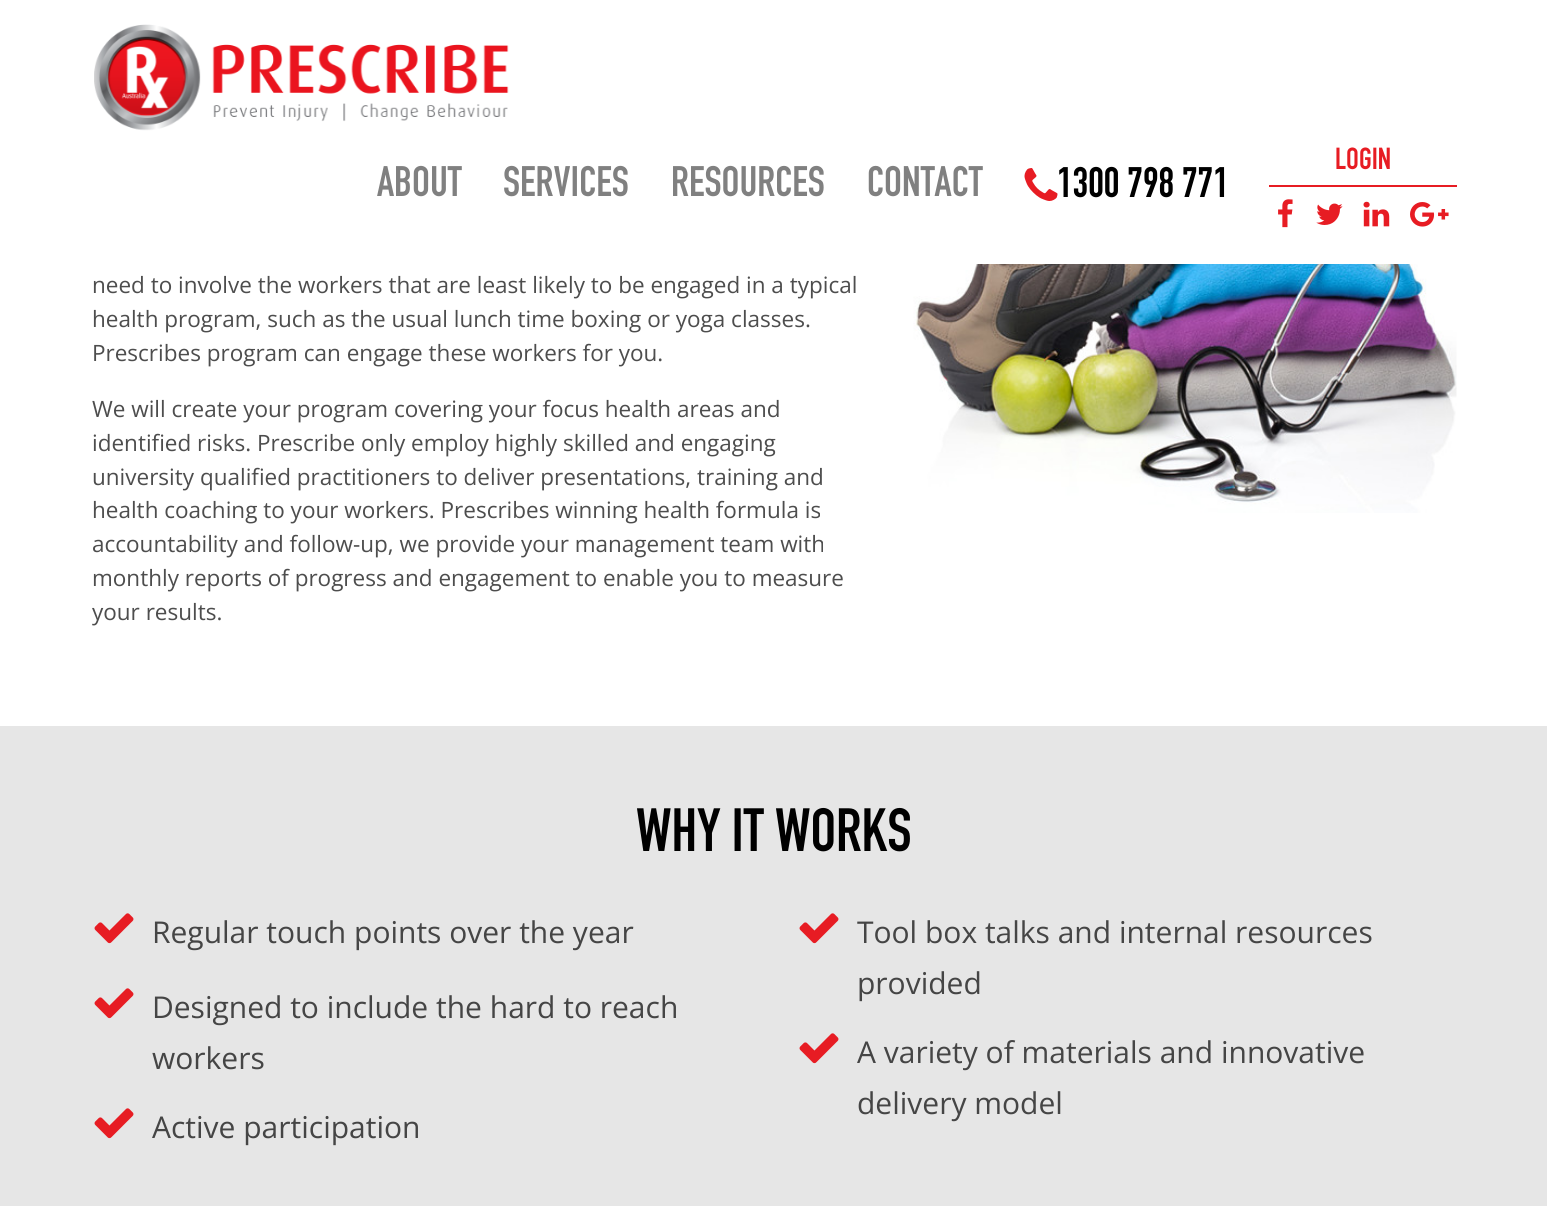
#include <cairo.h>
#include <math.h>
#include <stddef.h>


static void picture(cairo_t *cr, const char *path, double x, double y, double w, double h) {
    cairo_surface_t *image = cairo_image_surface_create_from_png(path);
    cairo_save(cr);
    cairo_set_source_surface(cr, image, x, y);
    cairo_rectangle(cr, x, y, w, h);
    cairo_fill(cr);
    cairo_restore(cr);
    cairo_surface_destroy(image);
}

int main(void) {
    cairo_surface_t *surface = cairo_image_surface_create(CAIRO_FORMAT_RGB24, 1547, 1206);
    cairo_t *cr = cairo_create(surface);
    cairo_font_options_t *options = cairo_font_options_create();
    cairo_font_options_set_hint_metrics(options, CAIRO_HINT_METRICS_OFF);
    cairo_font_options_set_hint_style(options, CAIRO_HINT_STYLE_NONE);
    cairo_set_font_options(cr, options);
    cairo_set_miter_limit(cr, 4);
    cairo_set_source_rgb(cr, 1, 1, 1);
    cairo_paint(cr);
    picture(cr, "img1.png", 94, 24, 415, 107);
    cairo_set_source_rgb(cr, 0.906, 0.11, 0.137);
    cairo_rectangle(cr, 1269, 185, 188, 2);
    cairo_fill(cr);
    cairo_select_font_face(cr, "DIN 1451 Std", CAIRO_FONT_SLANT_NORMAL, CAIRO_FONT_WEIGHT_NORMAL);
    cairo_set_font_size(cr, 30);
    cairo_move_to(cr, 1335, 169);
    cairo_show_text(cr, "LOGIN");
    picture(cr, "img2.png", 1278, 199, 15, 29);
    picture(cr, "img3.png", 1316, 203, 27, 22);
    picture(cr, "img4.png", 1363, 201, 27, 26);
    picture(cr, "img5.png", 1410, 202, 39, 25);
    cairo_set_font_size(cr, 42);
    cairo_set_source_rgb(cr, 0.502, 0.502, 0.502);
    cairo_move_to(cr, 377, 196);
    cairo_show_text(cr, "ABOUT");
    cairo_move_to(cr, 503, 196);
    cairo_show_text(cr, "SERVICES");
    cairo_move_to(cr, 671, 196);
    cairo_show_text(cr, "RESOURCES");
    cairo_move_to(cr, 867, 196);
    cairo_show_text(cr, "CONTACT");
    picture(cr, "img6.png", 1024, 168, 34, 33);
    cairo_set_source_rgb(cr, 0, 0, 0);
    cairo_move_to(cr, 1057, 197);
    cairo_show_text(cr, "1300 798 771");
    cairo_select_font_face(cr, "Open Sans", CAIRO_FONT_SLANT_NORMAL, CAIRO_FONT_WEIGHT_NORMAL);
    cairo_set_font_size(cr, 22.5);
    cairo_set_source_rgb(cr, 0.302, 0.302, 0.302);
    cairo_move_to(cr, 92, 293);
    cairo_show_text(cr, "need to involve the workers that are least likely to be engaged in a typical");
    cairo_move_to(cr, 92, 327);
    cairo_show_text(cr, "health program, such as the usual lunch time boxing or yoga classes.");
    cairo_move_to(cr, 92, 361);
    cairo_show_text(cr, "Prescribes program can engage these workers for you.");
    cairo_move_to(cr, 92, 417);
    cairo_show_text(cr, "We will create your program covering your focus health areas and");
    cairo_move_to(cr, 92, 451);
    cairo_show_text(cr, "identified risks. Prescribe only employ highly skilled and engaging");
    cairo_move_to(cr, 92, 485);
    cairo_show_text(cr, "university qualified practitioners to deliver presentations, training and");
    cairo_move_to(cr, 92, 518);
    cairo_show_text(cr, "health coaching to your workers. Prescribes winning health formula is");
    cairo_move_to(cr, 92, 552);
    cairo_show_text(cr, "accountability and follow-up, we provide your management team with");
    cairo_move_to(cr, 92, 586);
    cairo_show_text(cr, "monthly reports of progress and engagement to enable you to measure");
    cairo_move_to(cr, 92, 620);
    cairo_show_text(cr, "your results.");
    picture(cr, "img7.png", 913, 264, 544, 249);
    cairo_set_source_rgb(cr, 0.902, 0.902, 0.902);
    cairo_rectangle(cr, 0, 726, 1547, 480);
    cairo_fill(cr);
    cairo_select_font_face(cr, "DIN 1451 Std", CAIRO_FONT_SLANT_NORMAL, CAIRO_FONT_WEIGHT_NORMAL);
    cairo_set_font_size(cr, 60);
    cairo_set_source_rgb(cr, 0, 0, 0);
    cairo_move_to(cr, 636, 851);
    cairo_show_text(cr, "WHY IT WORKS");
    picture(cr, "img8.png", 94, 913, 40, 31);
    cairo_select_font_face(cr, "Open Sans", CAIRO_FONT_SLANT_NORMAL, CAIRO_FONT_WEIGHT_NORMAL);
    cairo_set_font_size(cr, 30);
    cairo_set_source_rgb(cr, 0.271, 0.271, 0.271);
    cairo_move_to(cr, 152, 943);
    cairo_show_text(cr, "Regular touch points over the year");
    picture(cr, "img8.png", 94, 988, 40, 31);
    cairo_move_to(cr, 152, 1018);
    cairo_show_text(cr, "Designed to include the hard to reach");
    cairo_move_to(cr, 152, 1069);
    cairo_show_text(cr, "workers");
    picture(cr, "img8.png", 94, 1108, 40, 31);
    cairo_move_to(cr, 152, 1138);
    cairo_show_text(cr, "Active participation");
    picture(cr, "img8.png", 799, 913, 40, 31);
    cairo_move_to(cr, 857, 943);
    cairo_show_text(cr, "Tool box talks and internal resources");
    cairo_move_to(cr, 857, 994);
    cairo_show_text(cr, "provided");
    picture(cr, "img8.png", 799, 1033, 40, 31);
    cairo_move_to(cr, 857, 1063);
    cairo_show_text(cr, "A variety of materials and innovative");
    cairo_move_to(cr, 857, 1114);
    cairo_show_text(cr, "delivery model");
    cairo_surface_write_to_png(surface, "page.png");
    cairo_font_options_destroy(options);
    cairo_destroy(cr);
    cairo_surface_destroy(surface);
    return 0;
}
